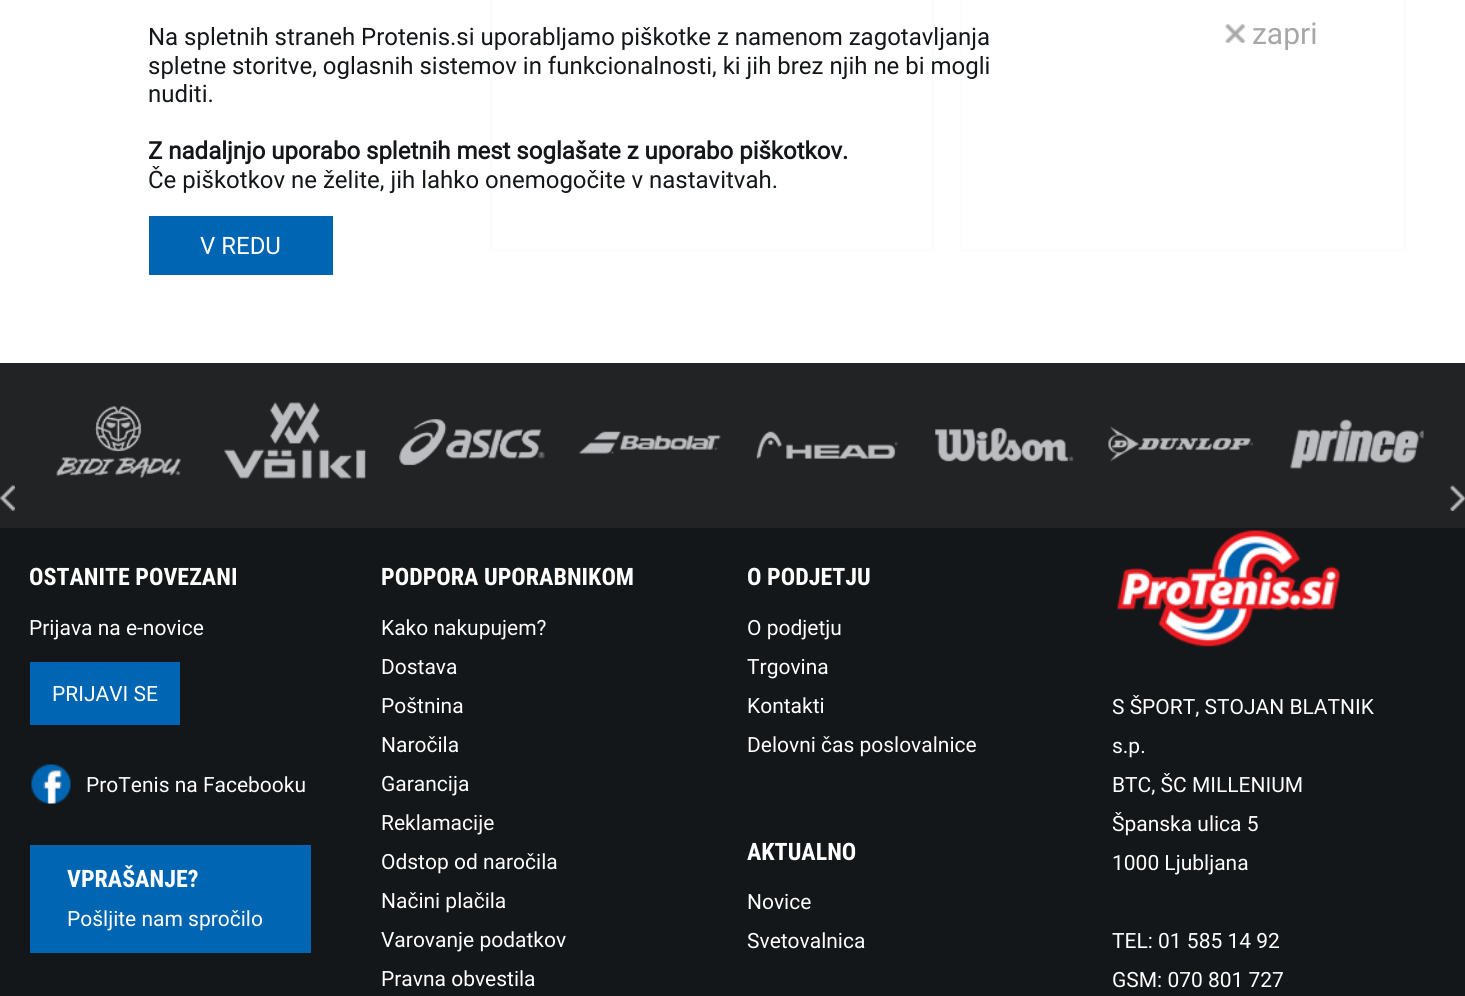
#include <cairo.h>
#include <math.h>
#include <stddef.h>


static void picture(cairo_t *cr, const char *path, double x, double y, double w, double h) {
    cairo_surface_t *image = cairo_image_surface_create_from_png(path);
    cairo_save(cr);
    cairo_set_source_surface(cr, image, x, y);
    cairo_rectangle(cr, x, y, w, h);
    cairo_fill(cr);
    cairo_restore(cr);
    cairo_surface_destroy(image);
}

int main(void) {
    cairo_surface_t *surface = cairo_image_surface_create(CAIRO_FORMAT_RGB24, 1465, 996);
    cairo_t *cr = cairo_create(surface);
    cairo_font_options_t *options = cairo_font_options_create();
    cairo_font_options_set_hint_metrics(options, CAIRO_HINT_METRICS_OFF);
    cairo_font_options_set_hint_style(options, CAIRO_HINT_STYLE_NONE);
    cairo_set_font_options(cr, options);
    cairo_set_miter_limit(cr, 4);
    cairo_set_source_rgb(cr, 1, 1, 1);
    cairo_paint(cr);
    cairo_rectangle(cr, 490.5, -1.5, 443, 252);
    cairo_set_source_rgb(cr, 0.988, 0.992, 0.992);
    cairo_set_line_width(cr, 3);
    cairo_stroke(cr);
    cairo_rectangle(cr, 961.5, -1.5, 444, 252);
    cairo_stroke(cr);
    cairo_select_font_face(cr, "Roboto", CAIRO_FONT_SLANT_NORMAL, CAIRO_FONT_WEIGHT_NORMAL);
    cairo_set_font_size(cr, 24);
    cairo_set_source_rgb(cr, 0.082, 0.09, 0.098);
    cairo_move_to(cr, 148, 45);
    cairo_show_text(cr, "Na spletnih straneh Protenis.si uporabljamo piškotke z namenom zagotavljanja");
    picture(cr, "img1.png", 1225, 24, 20, 19);
    cairo_set_font_size(cr, 30);
    cairo_set_source_rgb(cr, 0.655, 0.655, 0.655);
    cairo_move_to(cr, 1252, 44);
    cairo_show_text(cr, "zapri");
    cairo_set_font_size(cr, 24);
    cairo_set_source_rgb(cr, 0.082, 0.09, 0.098);
    cairo_move_to(cr, 148, 74);
    cairo_show_text(cr, "spletne storitve, oglasnih sistemov in funkcionalnosti, ki jih brez njih ne bi mogli");
    cairo_move_to(cr, 148, 102);
    cairo_show_text(cr, "nuditi.");
    cairo_select_font_face(cr, "Roboto", CAIRO_FONT_SLANT_NORMAL, CAIRO_FONT_WEIGHT_BOLD);
    cairo_move_to(cr, 148, 159);
    cairo_show_text(cr, "Z nadaljnjo uporabo spletnih mest soglašate z uporabo piškotkov.");
    cairo_select_font_face(cr, "Roboto", CAIRO_FONT_SLANT_NORMAL, CAIRO_FONT_WEIGHT_NORMAL);
    cairo_move_to(cr, 148, 188);
    cairo_show_text(cr, "Če piškotkov ne želite, jih lahko onemogočite v nastavitvah.");
    cairo_set_source_rgb(cr, 0, 0.4, 0.702);
    cairo_rectangle(cr, 149, 216, 184, 59);
    cairo_fill(cr);
    cairo_set_source_rgb(cr, 1, 1, 1);
    cairo_move_to(cr, 200, 254);
    cairo_show_text(cr, "V REDU");
    cairo_set_source_rgb(cr, 0.129, 0.137, 0.141);
    cairo_rectangle(cr, 0, 363, 1465, 165);
    cairo_fill(cr);
    picture(cr, "img2.png", 56, 406, 125, 72);
    picture(cr, "img3.png", 224, 402, 142, 77);
    picture(cr, "img4.png", 399, 419, 146, 47);
    picture(cr, "img5.png", 578, 431, 143, 23);
    picture(cr, "img6.png", 756, 431, 142, 28);
    picture(cr, "img7.png", 935, 427, 139, 35);
    picture(cr, "img8.png", 1108, 426, 145, 36);
    picture(cr, "img9.png", 1290, 419, 134, 50);
    picture(cr, "img10.png", 0, 485, 15, 26);
    picture(cr, "img11.png", 1450, 485, 15, 26);
    cairo_set_source_rgb(cr, 0.082, 0.09, 0.098);
    cairo_rectangle(cr, 0, 528, 1465, 468);
    cairo_fill(cr);
    cairo_select_font_face(cr, "Roboto Condensed", CAIRO_FONT_SLANT_NORMAL, CAIRO_FONT_WEIGHT_BOLD);
    cairo_set_source_rgb(cr, 1, 1, 1);
    cairo_move_to(cr, 29, 585);
    cairo_show_text(cr, "OSTANITE POVEZANI");
    cairo_select_font_face(cr, "Roboto", CAIRO_FONT_SLANT_NORMAL, CAIRO_FONT_WEIGHT_NORMAL);
    cairo_set_font_size(cr, 21);
    cairo_move_to(cr, 29, 635);
    cairo_show_text(cr, "Prijava na e-novice");
    cairo_set_source_rgb(cr, 0, 0.4, 0.702);
    cairo_rectangle(cr, 30, 662, 150, 63);
    cairo_fill(cr);
    cairo_set_source_rgb(cr, 1, 1, 1);
    cairo_move_to(cr, 52, 701);
    cairo_show_text(cr, "PRIJAVI SE");
    picture(cr, "img12.png", 31, 764, 40, 40);
    cairo_move_to(cr, 86, 792);
    cairo_show_text(cr, "ProTenis na Facebooku");
    cairo_set_source_rgb(cr, 0, 0.4, 0.702);
    cairo_rectangle(cr, 30, 845, 281, 108);
    cairo_fill(cr);
    cairo_select_font_face(cr, "Roboto Condensed", CAIRO_FONT_SLANT_NORMAL, CAIRO_FONT_WEIGHT_BOLD);
    cairo_set_font_size(cr, 24);
    cairo_set_source_rgb(cr, 1, 1, 1);
    cairo_move_to(cr, 67, 887);
    cairo_show_text(cr, "VPRAŠANJE?");
    cairo_select_font_face(cr, "Roboto", CAIRO_FONT_SLANT_NORMAL, CAIRO_FONT_WEIGHT_NORMAL);
    cairo_set_font_size(cr, 21);
    cairo_move_to(cr, 67, 926);
    cairo_show_text(cr, "Pošljite nam spročilo");
    cairo_select_font_face(cr, "Roboto Condensed", CAIRO_FONT_SLANT_NORMAL, CAIRO_FONT_WEIGHT_BOLD);
    cairo_set_font_size(cr, 24);
    cairo_move_to(cr, 381, 585);
    cairo_show_text(cr, "PODPORA UPORABNIKOM");
    cairo_select_font_face(cr, "Roboto", CAIRO_FONT_SLANT_NORMAL, CAIRO_FONT_WEIGHT_NORMAL);
    cairo_set_font_size(cr, 21);
    cairo_move_to(cr, 381, 635);
    cairo_show_text(cr, "Kako nakupujem?");
    cairo_move_to(cr, 381, 674);
    cairo_show_text(cr, "Dostava");
    cairo_move_to(cr, 381, 713);
    cairo_show_text(cr, "Poštnina");
    cairo_move_to(cr, 381, 752);
    cairo_show_text(cr, "Naročila");
    cairo_move_to(cr, 381, 791);
    cairo_show_text(cr, "Garancija");
    cairo_move_to(cr, 381, 830);
    cairo_show_text(cr, "Reklamacije");
    cairo_move_to(cr, 381, 869);
    cairo_show_text(cr, "Odstop od naročila");
    cairo_move_to(cr, 381, 908);
    cairo_show_text(cr, "Načini plačila");
    cairo_move_to(cr, 381, 947);
    cairo_show_text(cr, "Varovanje podatkov");
    cairo_move_to(cr, 381, 986);
    cairo_show_text(cr, "Pravna obvestila");
    cairo_select_font_face(cr, "Roboto Condensed", CAIRO_FONT_SLANT_NORMAL, CAIRO_FONT_WEIGHT_BOLD);
    cairo_set_font_size(cr, 24);
    cairo_move_to(cr, 747, 585);
    cairo_show_text(cr, "O PODJETJU");
    cairo_select_font_face(cr, "Roboto", CAIRO_FONT_SLANT_NORMAL, CAIRO_FONT_WEIGHT_NORMAL);
    cairo_set_font_size(cr, 21);
    cairo_move_to(cr, 747, 635);
    cairo_show_text(cr, "O podjetju");
    cairo_move_to(cr, 747, 674);
    cairo_show_text(cr, "Trgovina");
    cairo_move_to(cr, 747, 713);
    cairo_show_text(cr, "Kontakti");
    cairo_move_to(cr, 747, 752);
    cairo_show_text(cr, "Delovni čas poslovalnice");
    cairo_select_font_face(cr, "Roboto Condensed", CAIRO_FONT_SLANT_NORMAL, CAIRO_FONT_WEIGHT_BOLD);
    cairo_set_font_size(cr, 24);
    cairo_move_to(cr, 747, 860);
    cairo_show_text(cr, "AKTUALNO");
    cairo_select_font_face(cr, "Roboto", CAIRO_FONT_SLANT_NORMAL, CAIRO_FONT_WEIGHT_NORMAL);
    cairo_set_font_size(cr, 21);
    cairo_move_to(cr, 747, 909);
    cairo_show_text(cr, "Novice");
    cairo_move_to(cr, 747, 948);
    cairo_show_text(cr, "Svetovalnica");
    picture(cr, "img13.png", 1117, 530, 223, 117);
    cairo_move_to(cr, 1112, 714);
    cairo_show_text(cr, "S ŠPORT, STOJAN BLATNIK");
    cairo_move_to(cr, 1112, 753);
    cairo_show_text(cr, "s.p.");
    cairo_move_to(cr, 1112, 792);
    cairo_show_text(cr, "BTC, ŠC MILLENIUM");
    cairo_move_to(cr, 1112, 831);
    cairo_show_text(cr, "Španska ulica 5");
    cairo_move_to(cr, 1112, 870);
    cairo_show_text(cr, "1000 Ljubljana");
    cairo_move_to(cr, 1112, 948);
    cairo_show_text(cr, "TEL: 01 585 14 92");
    cairo_move_to(cr, 1112, 987);
    cairo_show_text(cr, "GSM: 070 801 727");
    cairo_surface_write_to_png(surface, "page.png");
    cairo_font_options_destroy(options);
    cairo_destroy(cr);
    cairo_surface_destroy(surface);
    return 0;
}
